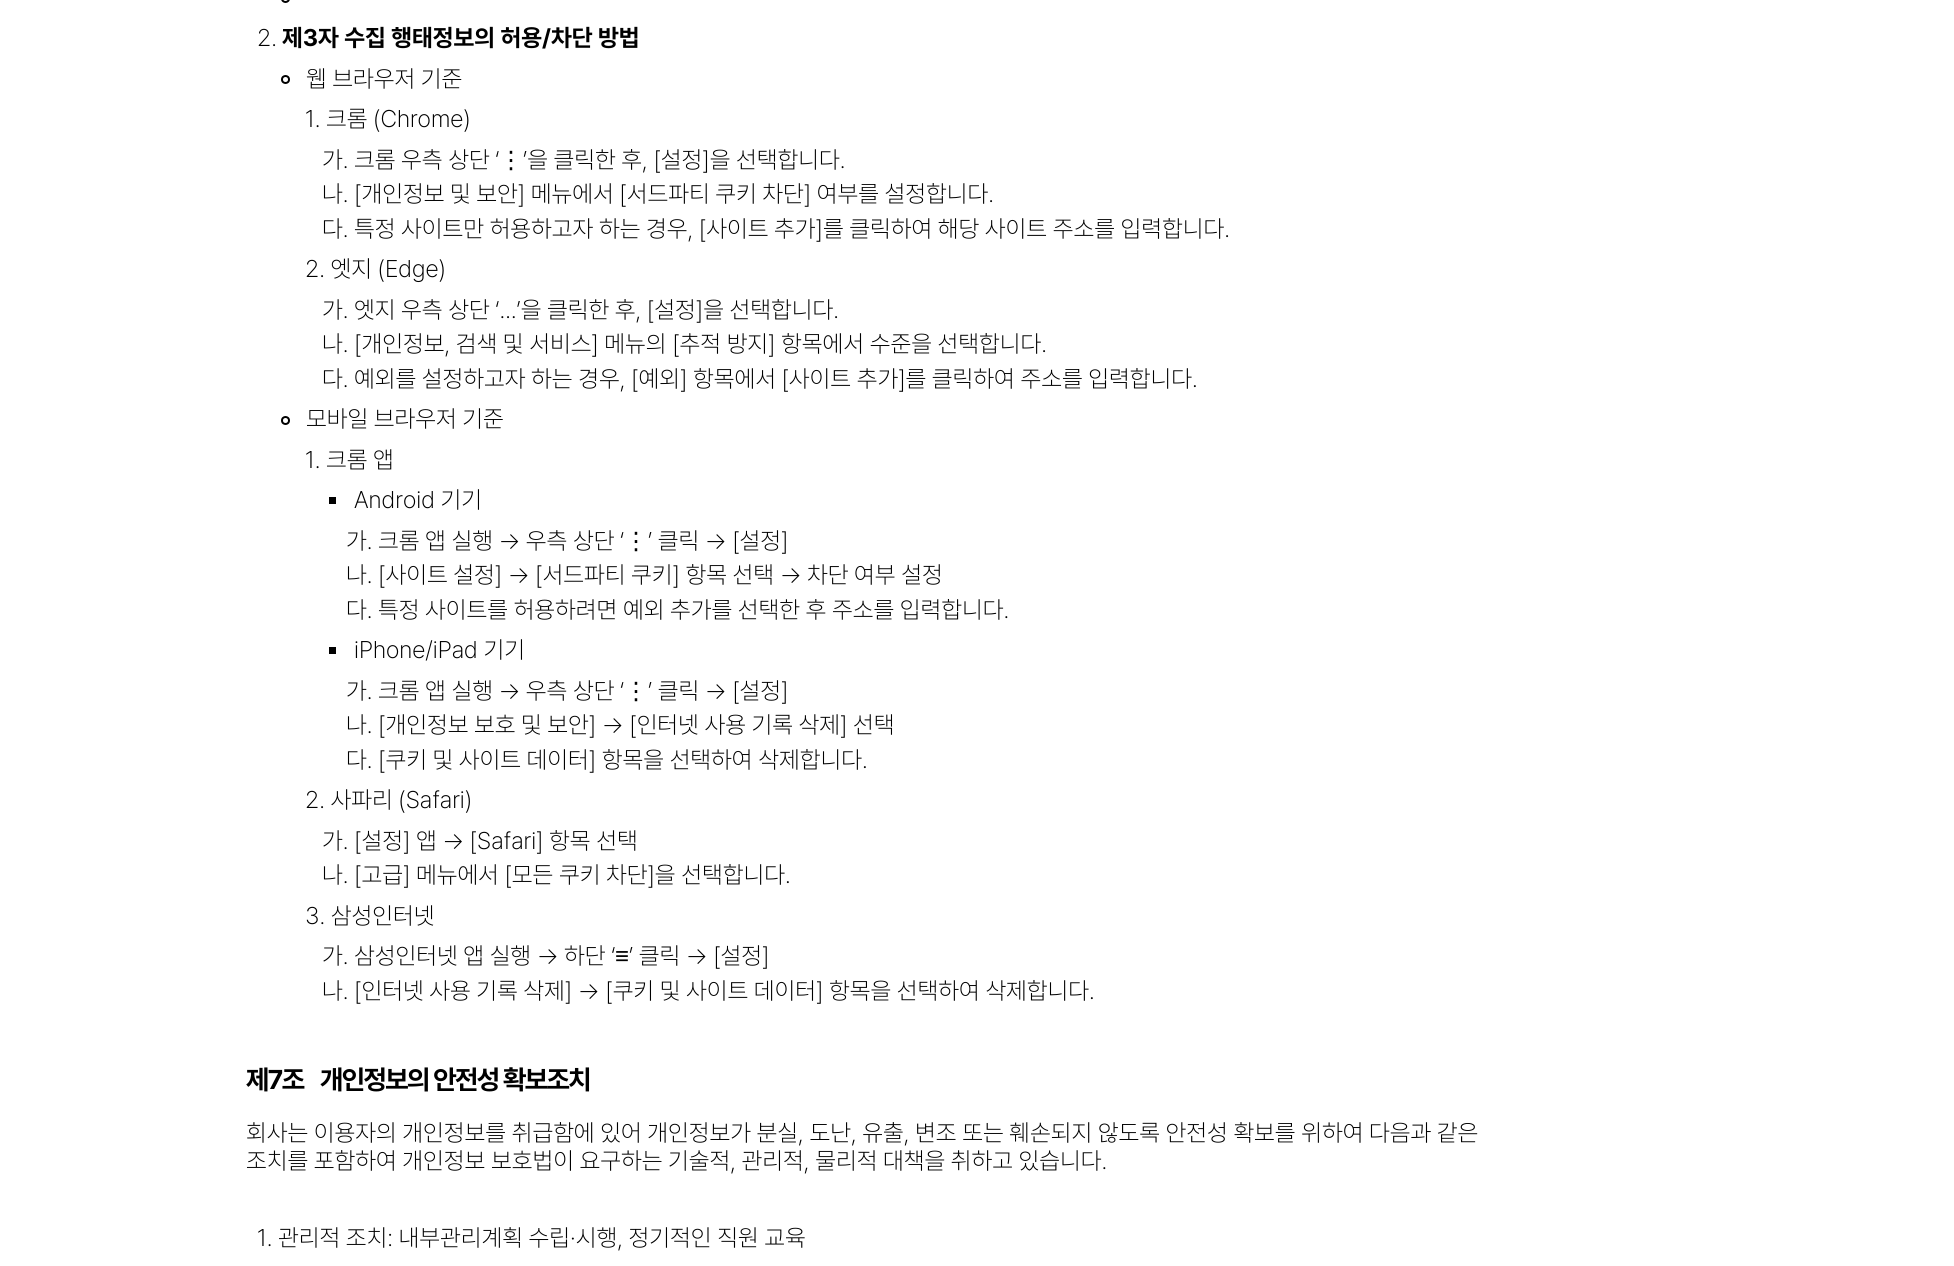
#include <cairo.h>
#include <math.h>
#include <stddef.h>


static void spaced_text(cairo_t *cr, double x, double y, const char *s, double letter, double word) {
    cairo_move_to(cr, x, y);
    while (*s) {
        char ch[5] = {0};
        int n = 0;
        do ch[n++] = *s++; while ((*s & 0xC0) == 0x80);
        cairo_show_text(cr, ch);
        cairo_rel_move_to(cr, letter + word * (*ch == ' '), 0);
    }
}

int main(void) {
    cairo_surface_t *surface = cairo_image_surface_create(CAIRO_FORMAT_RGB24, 1954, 1266);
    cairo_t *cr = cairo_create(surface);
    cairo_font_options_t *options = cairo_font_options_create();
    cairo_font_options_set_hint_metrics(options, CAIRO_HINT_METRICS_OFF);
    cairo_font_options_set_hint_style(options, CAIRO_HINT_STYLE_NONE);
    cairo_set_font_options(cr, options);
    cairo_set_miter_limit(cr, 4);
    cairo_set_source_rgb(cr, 1, 1, 1);
    cairo_paint(cr);
    cairo_arc(cr, 285.5, -1.5, 3.5, 0, 2 * M_PI);
    cairo_set_source_rgb(cr, 0, 0, 0);
    cairo_stroke(cr);
    cairo_select_font_face(cr, "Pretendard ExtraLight", CAIRO_FONT_SLANT_NORMAL, CAIRO_FONT_WEIGHT_NORMAL);
    cairo_set_font_size(cr, 24);
    cairo_move_to(cr, 257, 46);
    cairo_show_text(cr, "2.");
    cairo_select_font_face(cr, "Pretendard", CAIRO_FONT_SLANT_NORMAL, CAIRO_FONT_WEIGHT_BOLD);
    cairo_move_to(cr, 282, 46);
    cairo_show_text(cr, "제3자 수집 행태정보의 허용/차단 방법");
    cairo_new_path(cr);
    cairo_arc(cr, 285.5, 79.5, 3.5, 0, 2 * M_PI);
    cairo_stroke(cr);
    cairo_select_font_face(cr, "Pretendard ExtraLight", CAIRO_FONT_SLANT_NORMAL, CAIRO_FONT_WEIGHT_NORMAL);
    cairo_move_to(cr, 306, 87);
    cairo_show_text(cr, "웹 브라우저 기준");
    cairo_move_to(cr, 305, 127);
    cairo_show_text(cr, "1. 크롬 (Chrome)");
    cairo_move_to(cr, 322, 168);
    cairo_show_text(cr, "가. 크롬 우측 상단 ‘");
    cairo_select_font_face(cr, "DejaVu Sans", CAIRO_FONT_SLANT_NORMAL, CAIRO_FONT_WEIGHT_NORMAL);
    cairo_move_to(cr, 499, 168);
    cairo_show_text(cr, "⋮");
    cairo_select_font_face(cr, "Pretendard ExtraLight", CAIRO_FONT_SLANT_NORMAL, CAIRO_FONT_WEIGHT_NORMAL);
    cairo_move_to(cr, 523, 168);
    cairo_show_text(cr, "’을 클릭한 후, [설정]을 선택합니다.");
    cairo_move_to(cr, 322, 202);
    cairo_show_text(cr, "나. [개인정보 및 보안] 메뉴에서 [서드파티 쿠키 차단] 여부를 설정합니다.");
    cairo_move_to(cr, 322, 237);
    cairo_show_text(cr, "다. 특정 사이트만 허용하고자 하는 경우, [사이트 추가]를 클릭하여 해당 사이트 주소를 입력합니다.");
    cairo_move_to(cr, 305, 277);
    cairo_show_text(cr, "2. 엣지 (Edge)");
    cairo_move_to(cr, 322, 318);
    cairo_show_text(cr, "가. 엣지 우측 상단 ‘…’을 클릭한 후, [설정]을 선택합니다.");
    cairo_move_to(cr, 322, 352);
    cairo_show_text(cr, "나. [개인정보, 검색 및 서비스] 메뉴의 [추적 방지] 항목에서 수준을 선택합니다.");
    cairo_move_to(cr, 322, 387);
    cairo_show_text(cr, "다. 예외를 설정하고자 하는 경우, [예외] 항목에서 [사이트 추가]를 클릭하여 주소를 입력합니다.");
    cairo_new_path(cr);
    cairo_arc(cr, 285.5, 420.5, 3.5, 0, 2 * M_PI);
    cairo_stroke(cr);
    cairo_move_to(cr, 306, 427);
    cairo_show_text(cr, "모바일 브라우저 기준");
    cairo_move_to(cr, 305, 468);
    cairo_show_text(cr, "1. 크롬 앱");
    cairo_rectangle(cr, 329, 497, 7, 7);
    cairo_fill(cr);
    cairo_move_to(cr, 354, 508);
    cairo_show_text(cr, "Android 기기");
    cairo_move_to(cr, 346, 549);
    cairo_show_text(cr, "가. 크롬 앱 실행 → 우측 상단 ‘");
    cairo_select_font_face(cr, "DejaVu Sans", CAIRO_FONT_SLANT_NORMAL, CAIRO_FONT_WEIGHT_NORMAL);
    cairo_move_to(cr, 624, 549);
    cairo_show_text(cr, "⋮");
    cairo_select_font_face(cr, "Pretendard ExtraLight", CAIRO_FONT_SLANT_NORMAL, CAIRO_FONT_WEIGHT_NORMAL);
    cairo_move_to(cr, 648, 549);
    cairo_show_text(cr, "’ 클릭 → [설정]");
    cairo_move_to(cr, 346, 583);
    cairo_show_text(cr, "나. [사이트 설정] → [서드파티 쿠키] 항목 선택 → 차단 여부 설정");
    cairo_move_to(cr, 346, 618);
    cairo_show_text(cr, "다. 특정 사이트를 허용하려면 예외 추가를 선택한 후 주소를 입력합니다.");
    cairo_rectangle(cr, 329, 647, 7, 7);
    cairo_fill(cr);
    cairo_move_to(cr, 354, 658);
    cairo_show_text(cr, "iPhone/iPad 기기");
    cairo_move_to(cr, 346, 699);
    cairo_show_text(cr, "가. 크롬 앱 실행 → 우측 상단 ‘");
    cairo_select_font_face(cr, "DejaVu Sans", CAIRO_FONT_SLANT_NORMAL, CAIRO_FONT_WEIGHT_NORMAL);
    cairo_move_to(cr, 624, 699);
    cairo_show_text(cr, "⋮");
    cairo_select_font_face(cr, "Pretendard ExtraLight", CAIRO_FONT_SLANT_NORMAL, CAIRO_FONT_WEIGHT_NORMAL);
    cairo_move_to(cr, 648, 699);
    cairo_show_text(cr, "’ 클릭 → [설정]");
    cairo_move_to(cr, 346, 733);
    cairo_show_text(cr, "나. [개인정보 보호 및 보안] → [인터넷 사용 기록 삭제] 선택");
    cairo_move_to(cr, 346, 768);
    cairo_show_text(cr, "다. [쿠키 및 사이트 데이터] 항목을 선택하여 삭제합니다.");
    cairo_move_to(cr, 305, 808);
    cairo_show_text(cr, "2. 사파리 (Safari)");
    cairo_move_to(cr, 322, 849);
    cairo_show_text(cr, "가. [설정] 앱 → [Safari] 항목 선택");
    cairo_move_to(cr, 322, 883);
    cairo_show_text(cr, "나. [고급] 메뉴에서 [모든 쿠키 차단]을 선택합니다.");
    cairo_move_to(cr, 305, 924);
    cairo_show_text(cr, "3. 삼성인터넷");
    cairo_move_to(cr, 322, 964);
    cairo_show_text(cr, "가. 삼성인터넷 앱 실행 → 하단 ‘");
    cairo_select_font_face(cr, "Liberation Sans", CAIRO_FONT_SLANT_NORMAL, CAIRO_FONT_WEIGHT_NORMAL);
    cairo_move_to(cr, 615, 964);
    cairo_show_text(cr, "≡");
    cairo_select_font_face(cr, "Pretendard ExtraLight", CAIRO_FONT_SLANT_NORMAL, CAIRO_FONT_WEIGHT_NORMAL);
    cairo_move_to(cr, 629, 964);
    cairo_show_text(cr, "’ 클릭 → [설정]");
    cairo_move_to(cr, 322, 999);
    cairo_show_text(cr, "나. [인터넷 사용 기록 삭제] → [쿠키 및 사이트 데이터] 항목을 선택하여 삭제합니다.");
    cairo_select_font_face(cr, "Pretendard", CAIRO_FONT_SLANT_NORMAL, CAIRO_FONT_WEIGHT_BOLD);
    cairo_set_font_size(cr, 27);
    spaced_text(cr, 246, 1089, "제7조", -1.6, 0);
    spaced_text(cr, 320, 1089, "개인정보의 안전성 확보조치", -1.6, 0);
    cairo_select_font_face(cr, "Pretendard ExtraLight", CAIRO_FONT_SLANT_NORMAL, CAIRO_FONT_WEIGHT_NORMAL);
    cairo_set_font_size(cr, 24);
    cairo_move_to(cr, 246, 1141);
    cairo_show_text(cr, "회사는 이용자의 개인정보를 취급함에 있어 개인정보가 분실, 도난, 유출, 변조 또는 훼손되지 않도록 안전성 확보를 위하여 다음과 같은");
    cairo_move_to(cr, 246, 1169);
    cairo_show_text(cr, "조치를 포함하여 개인정보 보호법이 요구하는 기술적, 관리적, 물리적 대책을 취하고 있습니다.");
    cairo_move_to(cr, 257, 1246);
    cairo_show_text(cr, "1. 관리적 조치: 내부관리계획 수립·시행, 정기적인 직원 교육");
    cairo_surface_write_to_png(surface, "page.png");
    cairo_font_options_destroy(options);
    cairo_destroy(cr);
    cairo_surface_destroy(surface);
    return 0;
}
